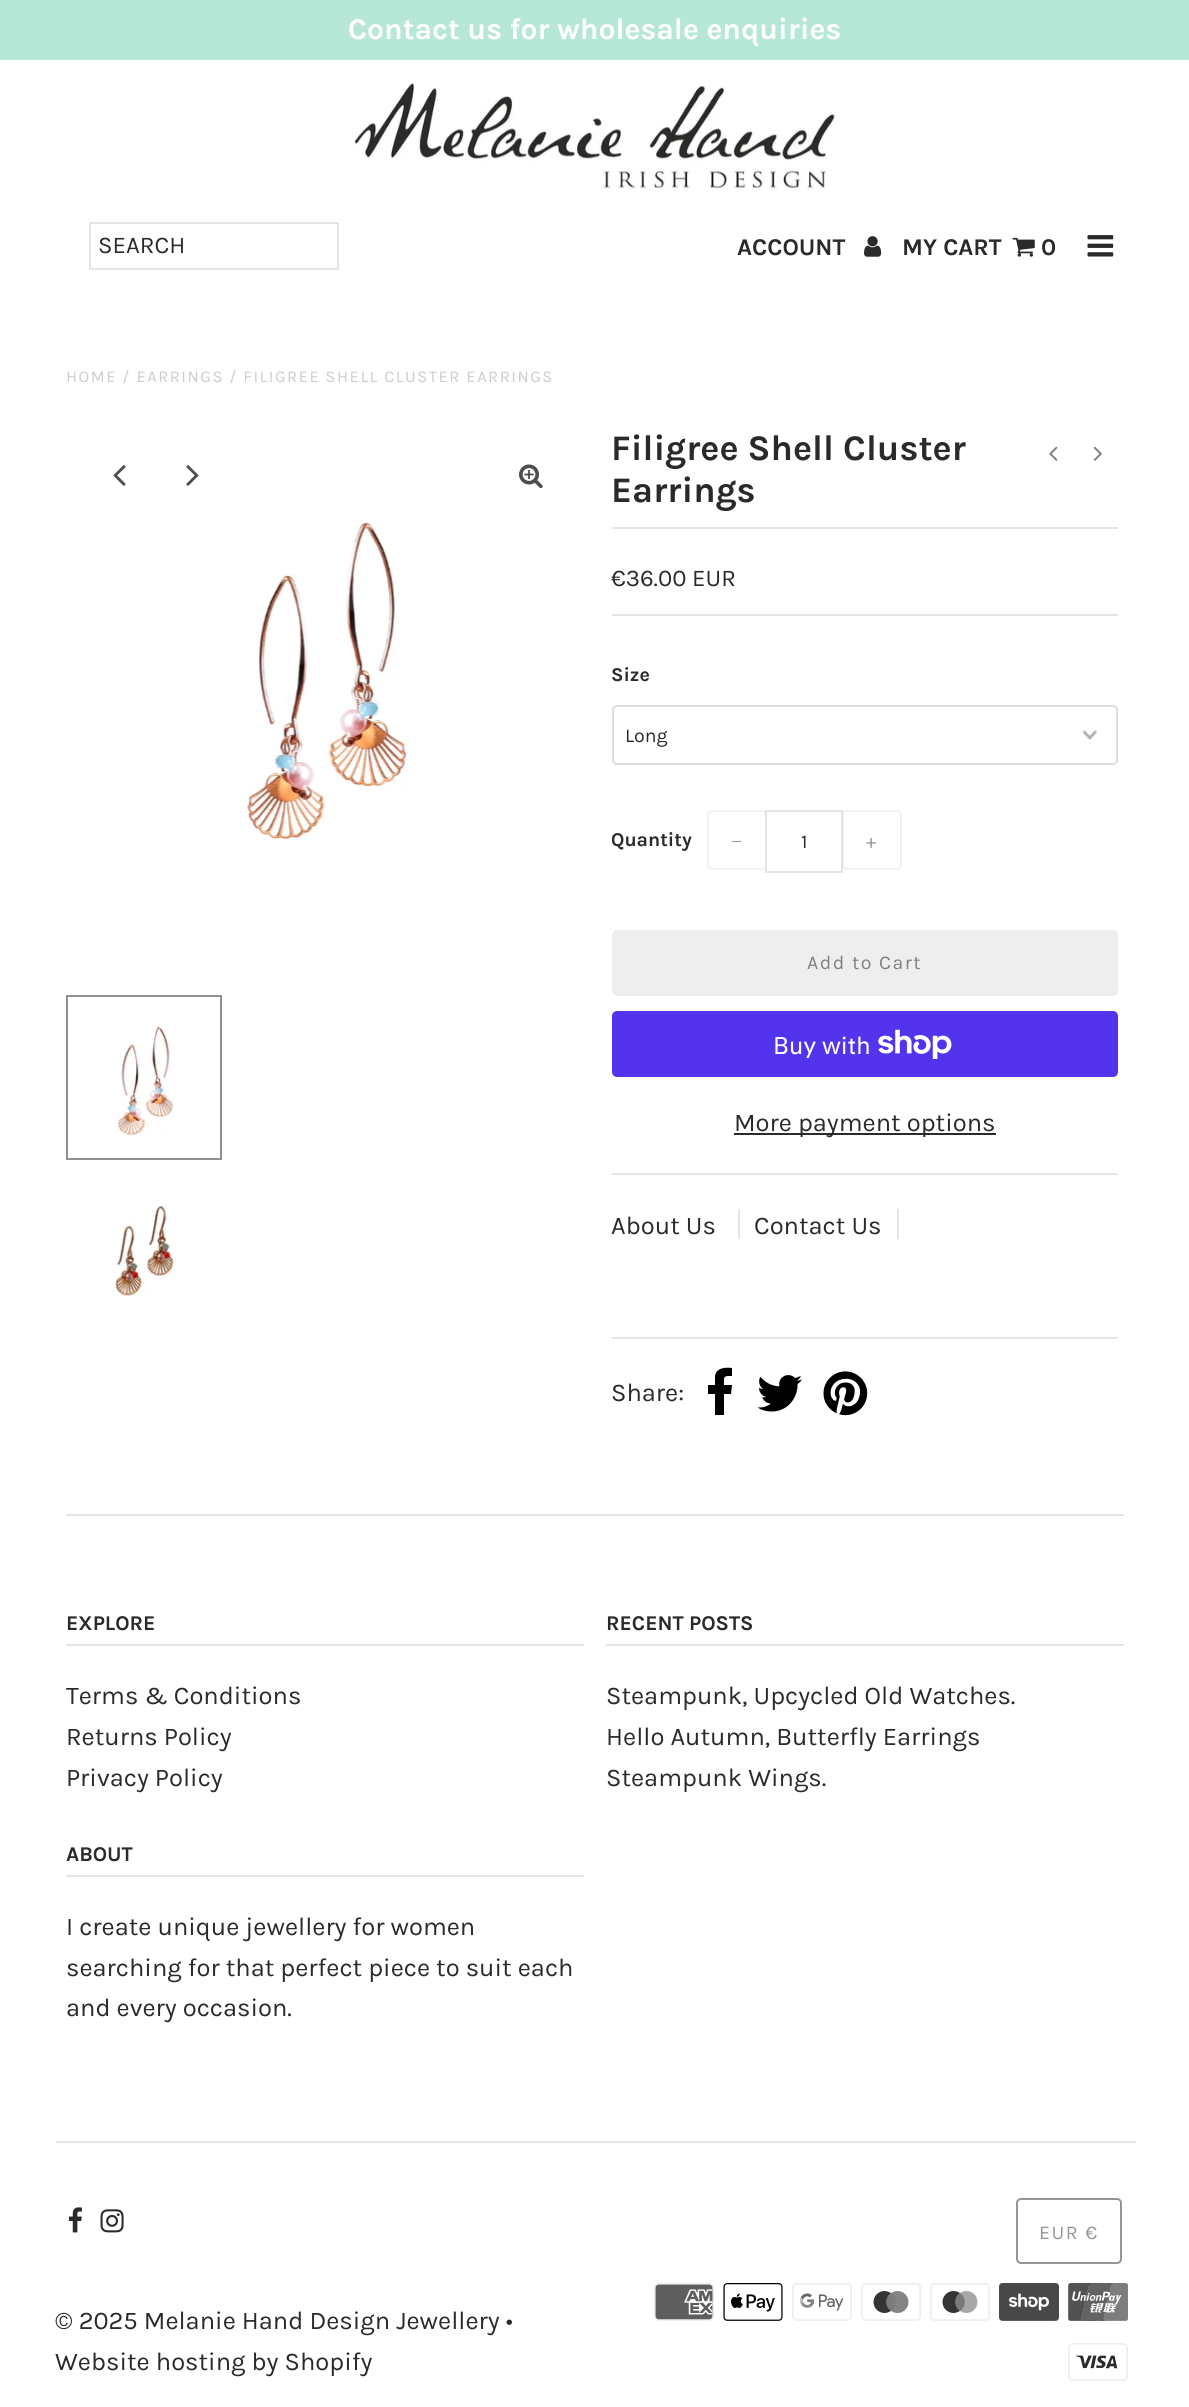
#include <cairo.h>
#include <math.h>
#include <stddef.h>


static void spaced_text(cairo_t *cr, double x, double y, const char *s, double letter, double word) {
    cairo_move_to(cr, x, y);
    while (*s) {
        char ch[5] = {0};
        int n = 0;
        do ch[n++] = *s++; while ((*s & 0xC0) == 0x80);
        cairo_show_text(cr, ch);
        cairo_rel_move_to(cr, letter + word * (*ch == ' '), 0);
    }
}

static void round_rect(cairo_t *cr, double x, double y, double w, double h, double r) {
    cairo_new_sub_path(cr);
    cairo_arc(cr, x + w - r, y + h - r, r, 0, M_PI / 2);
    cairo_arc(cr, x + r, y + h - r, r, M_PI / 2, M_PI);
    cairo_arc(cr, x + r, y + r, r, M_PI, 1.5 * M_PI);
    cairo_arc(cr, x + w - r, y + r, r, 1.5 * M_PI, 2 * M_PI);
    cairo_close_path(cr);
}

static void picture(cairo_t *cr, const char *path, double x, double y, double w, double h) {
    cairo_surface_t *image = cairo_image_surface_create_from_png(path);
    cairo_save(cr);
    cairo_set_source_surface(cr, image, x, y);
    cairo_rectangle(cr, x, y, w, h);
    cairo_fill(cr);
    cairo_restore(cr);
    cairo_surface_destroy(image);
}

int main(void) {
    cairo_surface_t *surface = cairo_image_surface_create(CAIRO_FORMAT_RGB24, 1189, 2407);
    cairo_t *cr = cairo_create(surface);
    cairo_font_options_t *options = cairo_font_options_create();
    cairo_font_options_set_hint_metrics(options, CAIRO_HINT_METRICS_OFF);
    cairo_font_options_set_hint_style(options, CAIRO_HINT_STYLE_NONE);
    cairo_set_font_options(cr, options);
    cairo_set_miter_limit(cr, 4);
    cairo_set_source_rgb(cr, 1, 1, 1);
    cairo_paint(cr);
    cairo_set_source_rgb(cr, 0.718, 0.906, 0.843);
    cairo_rectangle(cr, 0, 0, 1189, 60);
    cairo_fill(cr);
    cairo_select_font_face(cr, "Karla", CAIRO_FONT_SLANT_NORMAL, CAIRO_FONT_WEIGHT_BOLD);
    cairo_set_font_size(cr, 30);
    cairo_set_source_rgb(cr, 1, 1, 1);
    cairo_move_to(cr, 348, 39);
    cairo_show_text(cr, "Contact us for wholesale enquiries");
    picture(cr, "img1.png", 354, 82, 482, 108);
    cairo_rectangle(cr, 90, 223, 248, 46);
    cairo_set_source_rgb(cr, 0.898, 0.898, 0.898);
    cairo_stroke(cr);
    cairo_select_font_face(cr, "Karla", CAIRO_FONT_SLANT_NORMAL, CAIRO_FONT_WEIGHT_NORMAL);
    cairo_set_font_size(cr, 24);
    cairo_set_source_rgb(cr, 0.173, 0.165, 0.157);
    cairo_move_to(cr, 98, 253);
    cairo_show_text(cr, "SEARCH");
    cairo_select_font_face(cr, "Karla", CAIRO_FONT_SLANT_NORMAL, CAIRO_FONT_WEIGHT_BOLD);
    cairo_move_to(cr, 737, 255);
    cairo_show_text(cr, "ACCOUNT");
    picture(cr, "img2.png", 864, 236, 18, 21);
    cairo_move_to(cr, 902, 255);
    cairo_show_text(cr, "MY CART");
    picture(cr, "img3.png", 1012, 237, 23, 20);
    cairo_move_to(cr, 1041, 255);
    cairo_show_text(cr, "0");
    picture(cr, "img4.png", 1087, 235, 27, 22);
    cairo_select_font_face(cr, "Karla", CAIRO_FONT_SLANT_NORMAL, CAIRO_FONT_WEIGHT_NORMAL);
    cairo_set_font_size(cr, 16.5);
    cairo_set_source_rgb(cr, 0.8, 0.8, 0.8);
    spaced_text(cr, 66, 382, "HOME / EARRINGS / FILIGREE SHELL CLUSTER EARRINGS", 1.5, 0);
    picture(cr, "img5.png", 113, 465, 13, 21);
    picture(cr, "img6.png", 186, 465, 13, 21);
    picture(cr, "img7.png", 519, 464, 24, 25);
    picture(cr, "img8.png", 247, 522, 163, 318);
    picture(cr, "img9.png", 116, 1025, 58, 111);
    cairo_rectangle(cr, 67, 996, 154, 163);
    cairo_set_source_rgb(cr, 0.584, 0.565, 0.545);
    cairo_stroke(cr);
    picture(cr, "img10.png", 114, 1205, 61, 92);
    cairo_select_font_face(cr, "Karla", CAIRO_FONT_SLANT_NORMAL, CAIRO_FONT_WEIGHT_BOLD);
    cairo_set_font_size(cr, 36);
    cairo_set_source_rgb(cr, 0.173, 0.165, 0.157);
    cairo_move_to(cr, 611, 460);
    cairo_show_text(cr, "Filigree Shell Cluster");
    cairo_move_to(cr, 611, 502);
    cairo_show_text(cr, "Earrings");
    picture(cr, "img11.png", 1049, 446, 9, 15);
    picture(cr, "img12.png", 1093, 446, 9, 15);
    cairo_set_source_rgb(cr, 0.898, 0.898, 0.898);
    cairo_rectangle(cr, 612, 527, 506, 2);
    cairo_fill(cr);
    cairo_rectangle(cr, 612, 1173, 506, 2);
    cairo_fill(cr);
    cairo_rectangle(cr, 612, 614, 506, 2);
    cairo_fill(cr);
    cairo_select_font_face(cr, "Karla", CAIRO_FONT_SLANT_NORMAL, CAIRO_FONT_WEIGHT_NORMAL);
    cairo_set_font_size(cr, 24);
    cairo_set_source_rgb(cr, 0.173, 0.165, 0.157);
    cairo_move_to(cr, 611, 586);
    cairo_show_text(cr, "€36.00 EUR");
    cairo_select_font_face(cr, "Karla", CAIRO_FONT_SLANT_NORMAL, CAIRO_FONT_WEIGHT_BOLD);
    cairo_set_font_size(cr, 19.5);
    cairo_move_to(cr, 611, 681);
    cairo_show_text(cr, "Size");
    picture(cr, "img13.png", 1082, 730, 15, 10);
    round_rect(cr, 613, 706, 504, 58, 4);
    cairo_set_source_rgb(cr, 0.867, 0.867, 0.867);
    cairo_stroke(cr);
    cairo_select_font_face(cr, "Karla", CAIRO_FONT_SLANT_NORMAL, CAIRO_FONT_WEIGHT_NORMAL);
    cairo_set_source_rgb(cr, 0.173, 0.165, 0.157);
    cairo_move_to(cr, 625, 742);
    cairo_show_text(cr, "Long");
    cairo_select_font_face(cr, "Karla", CAIRO_FONT_SLANT_NORMAL, CAIRO_FONT_WEIGHT_BOLD);
    cairo_move_to(cr, 611, 846);
    cairo_show_text(cr, "Quantity");
    cairo_rectangle(cr, 766, 811, 76, 61);
    cairo_set_source_rgb(cr, 0.898, 0.898, 0.898);
    cairo_stroke(cr);
    round_rect(cr, 708, 811, 58, 58, 4);
    cairo_set_source_rgba(cr, 0.898, 0.898, 0.898, 0.5);
    cairo_stroke(cr);
    cairo_select_font_face(cr, "Liberation Serif", CAIRO_FONT_SLANT_NORMAL, CAIRO_FONT_WEIGHT_NORMAL);
    cairo_set_source_rgb(cr, 0.588, 0.584, 0.58);
    spaced_text(cr, 731, 848, "−", 1.5, 0);
    cairo_select_font_face(cr, "Karla", CAIRO_FONT_SLANT_NORMAL, CAIRO_FONT_WEIGHT_NORMAL);
    cairo_set_source_rgb(cr, 0.173, 0.165, 0.157);
    cairo_move_to(cr, 801, 848);
    cairo_show_text(cr, "1");
    round_rect(cr, 843, 811, 58, 58, 4);
    cairo_set_source_rgba(cr, 0.898, 0.898, 0.898, 0.5);
    cairo_stroke(cr);
    cairo_set_source_rgb(cr, 0.588, 0.584, 0.58);
    spaced_text(cr, 866, 848, "+", 1.5, 0);
    cairo_set_source_rgb(cr, 0.933, 0.933, 0.933);
    round_rect(cr, 612, 930, 506, 66, 5);
    cairo_fill(cr);
    cairo_set_source_rgb(cr, 0.502, 0.502, 0.502);
    spaced_text(cr, 807, 969, "Add to Cart", 1.5, 0);
    cairo_set_source_rgb(cr, 0.329, 0.2, 0.922);
    round_rect(cr, 612, 1011, 506, 66, 5);
    cairo_fill(cr);
    cairo_select_font_face(cr, "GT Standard", CAIRO_FONT_SLANT_NORMAL, CAIRO_FONT_WEIGHT_NORMAL);
    cairo_set_font_size(cr, 24);
    cairo_set_source_rgb(cr, 1, 1, 1);
    cairo_move_to(cr, 773, 1054);
    cairo_show_text(cr, "Buy with");
    picture(cr, "img14.png", 878, 1029, 74, 30);
    cairo_set_source_rgb(cr, 0.173, 0.165, 0.157);
    cairo_rectangle(cr, 734, 1133, 262, 2);
    cairo_fill(cr);
    cairo_select_font_face(cr, "Karla", CAIRO_FONT_SLANT_NORMAL, CAIRO_FONT_WEIGHT_NORMAL);
    cairo_set_font_size(cr, 25.5);
    cairo_move_to(cr, 734, 1131);
    cairo_show_text(cr, "More payment options");
    cairo_move_to(cr, 611, 1234);
    cairo_show_text(cr, "About Us");
    cairo_set_source_rgb(cr, 0.898, 0.898, 0.898);
    cairo_rectangle(cr, 738, 1209, 2, 30);
    cairo_fill(cr);
    cairo_set_source_rgb(cr, 0.173, 0.165, 0.157);
    cairo_move_to(cr, 754, 1234);
    cairo_show_text(cr, "Contact Us");
    cairo_set_source_rgb(cr, 0.898, 0.898, 0.898);
    cairo_rectangle(cr, 897, 1209, 2, 30);
    cairo_fill(cr);
    cairo_rectangle(cr, 612, 1337, 506, 2);
    cairo_fill(cr);
    cairo_set_source_rgb(cr, 0.173, 0.165, 0.157);
    cairo_move_to(cr, 611, 1401);
    cairo_show_text(cr, "Share:");
    cairo_set_source_rgb(cr, 0, 0, 0);
    cairo_new_path(cr);
    cairo_move_to(cr, 732, 1368);
    cairo_line_to(cr, 732, 1376);
    cairo_curve_to(cr, 723, 1376, 724, 1376, 724, 1385);
    cairo_line_to(cr, 732, 1385);
    cairo_line_to(cr, 731, 1394);
    cairo_line_to(cr, 724, 1394);
    cairo_line_to(cr, 724, 1415);
    cairo_line_to(cr, 715, 1415);
    cairo_line_to(cr, 715, 1394);
    cairo_line_to(cr, 708, 1394);
    cairo_line_to(cr, 708, 1385);
    cairo_line_to(cr, 715, 1385);
    cairo_line_to(cr, 715, 1376);
    cairo_curve_to(cr, 716, 1368, 725, 1367, 732, 1368);
    cairo_close_path(cr);
    cairo_fill(cr);
    picture(cr, "img15.png", 757, 1375, 45, 37);
    picture(cr, "img16.png", 823, 1371, 45, 45);
    cairo_set_source_rgb(cr, 0.898, 0.898, 0.898);
    cairo_rectangle(cr, 66, 1514, 1058, 2);
    cairo_fill(cr);
    cairo_rectangle(cr, 66, 1644, 518, 2);
    cairo_fill(cr);
    cairo_select_font_face(cr, "Karla", CAIRO_FONT_SLANT_NORMAL, CAIRO_FONT_WEIGHT_BOLD);
    cairo_set_font_size(cr, 21);
    cairo_set_source_rgb(cr, 0.173, 0.165, 0.157);
    cairo_move_to(cr, 66, 1630);
    cairo_show_text(cr, "EXPLORE");
    cairo_select_font_face(cr, "Karla", CAIRO_FONT_SLANT_NORMAL, CAIRO_FONT_WEIGHT_NORMAL);
    cairo_set_font_size(cr, 25.5);
    cairo_move_to(cr, 66, 1704);
    cairo_show_text(cr, "Terms & Conditions");
    cairo_move_to(cr, 66, 1745);
    cairo_show_text(cr, "Returns Policy");
    cairo_move_to(cr, 66, 1786);
    cairo_show_text(cr, "Privacy Policy");
    cairo_set_source_rgb(cr, 0.898, 0.898, 0.898);
    cairo_rectangle(cr, 606, 1644, 518, 2);
    cairo_fill(cr);
    cairo_select_font_face(cr, "Karla", CAIRO_FONT_SLANT_NORMAL, CAIRO_FONT_WEIGHT_BOLD);
    cairo_set_font_size(cr, 21);
    cairo_set_source_rgb(cr, 0.173, 0.165, 0.157);
    cairo_move_to(cr, 606, 1630);
    cairo_show_text(cr, "RECENT POSTS");
    cairo_select_font_face(cr, "Karla", CAIRO_FONT_SLANT_NORMAL, CAIRO_FONT_WEIGHT_NORMAL);
    cairo_set_font_size(cr, 25.5);
    cairo_move_to(cr, 606, 1704);
    cairo_show_text(cr, "Steampunk, Upcycled Old Watches.");
    cairo_move_to(cr, 606, 1745);
    cairo_show_text(cr, "Hello Autumn, Butterfly Earrings");
    cairo_move_to(cr, 606, 1786);
    cairo_show_text(cr, "Steampunk Wings.");
    cairo_set_source_rgb(cr, 0.898, 0.898, 0.898);
    cairo_rectangle(cr, 66, 1875, 518, 2);
    cairo_fill(cr);
    cairo_select_font_face(cr, "Karla", CAIRO_FONT_SLANT_NORMAL, CAIRO_FONT_WEIGHT_BOLD);
    cairo_set_font_size(cr, 21);
    cairo_set_source_rgb(cr, 0.173, 0.165, 0.157);
    cairo_move_to(cr, 66, 1861);
    cairo_show_text(cr, "ABOUT");
    cairo_select_font_face(cr, "Karla", CAIRO_FONT_SLANT_NORMAL, CAIRO_FONT_WEIGHT_NORMAL);
    cairo_set_font_size(cr, 25.5);
    cairo_move_to(cr, 66, 1935);
    cairo_show_text(cr, "I create unique jewellery for women");
    cairo_move_to(cr, 66, 1976);
    cairo_show_text(cr, "searching for that perfect piece to suit each");
    cairo_move_to(cr, 66, 2016);
    cairo_show_text(cr, "and every occasion.");
    cairo_set_source_rgb(cr, 0.898, 0.898, 0.898);
    cairo_rectangle(cr, 56, 2141, 1080, 2);
    cairo_fill(cr);
    round_rect(cr, 1017, 2199, 104, 64, 4);
    cairo_set_source_rgb(cr, 0.588, 0.584, 0.58);
    cairo_stroke(cr);
    cairo_set_font_size(cr, 19.5);
    spaced_text(cr, 1039, 2239, "EUR €", 1.5, 0);
    picture(cr, "img17.png", 654, 2283, 60, 38);
    picture(cr, "img18.png", 723, 2283, 60, 38);
    picture(cr, "img19.png", 792, 2283, 60, 38);
    picture(cr, "img20.png", 861, 2283, 60, 38);
    picture(cr, "img21.png", 930, 2283, 60, 38);
    picture(cr, "img22.png", 999, 2283, 60, 38);
    picture(cr, "img23.png", 1068, 2283, 60, 38);
    picture(cr, "img24.png", 1068, 2343, 60, 38);
    picture(cr, "img25.png", 68, 2207, 14, 26);
    picture(cr, "img26.png", 100, 2209, 24, 24);
    cairo_set_font_size(cr, 25.5);
    cairo_set_source_rgb(cr, 0.173, 0.165, 0.157);
    cairo_move_to(cr, 55, 2329);
    cairo_show_text(cr, "© 2025 Melanie Hand Design Jewellery •");
    cairo_move_to(cr, 55, 2370);
    cairo_show_text(cr, "Website hosting by Shopify");
    cairo_surface_write_to_png(surface, "page.png");
    cairo_font_options_destroy(options);
    cairo_destroy(cr);
    cairo_surface_destroy(surface);
    return 0;
}
